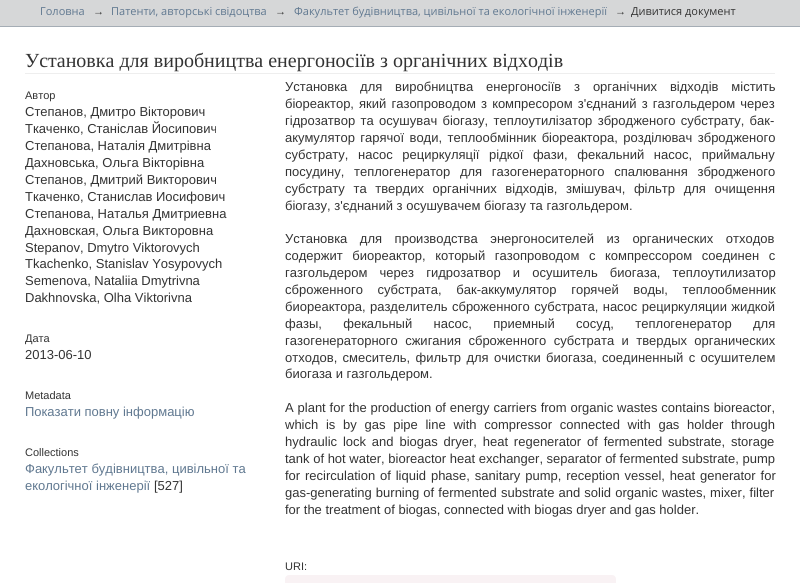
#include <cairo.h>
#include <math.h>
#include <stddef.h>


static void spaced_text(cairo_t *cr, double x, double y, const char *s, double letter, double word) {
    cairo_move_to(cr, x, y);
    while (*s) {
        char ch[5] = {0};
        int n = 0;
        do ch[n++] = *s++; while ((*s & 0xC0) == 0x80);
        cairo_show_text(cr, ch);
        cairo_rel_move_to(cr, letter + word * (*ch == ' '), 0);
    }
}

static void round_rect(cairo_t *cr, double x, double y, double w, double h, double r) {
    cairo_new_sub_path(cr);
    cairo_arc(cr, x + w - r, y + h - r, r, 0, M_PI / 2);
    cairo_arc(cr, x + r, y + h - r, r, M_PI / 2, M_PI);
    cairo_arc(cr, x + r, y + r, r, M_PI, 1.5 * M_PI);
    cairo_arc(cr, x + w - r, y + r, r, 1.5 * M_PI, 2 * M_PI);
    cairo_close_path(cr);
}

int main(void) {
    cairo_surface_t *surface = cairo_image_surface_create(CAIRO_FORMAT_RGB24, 800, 583);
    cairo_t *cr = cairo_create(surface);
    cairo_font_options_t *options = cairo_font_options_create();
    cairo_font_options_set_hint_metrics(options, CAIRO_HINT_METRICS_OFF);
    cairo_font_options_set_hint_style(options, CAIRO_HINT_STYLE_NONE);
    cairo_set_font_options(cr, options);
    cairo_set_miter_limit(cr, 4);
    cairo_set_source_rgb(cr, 0.839, 0.843, 0.847);
    cairo_paint(cr);
    cairo_set_source_rgb(cr, 0.647, 0.678, 0.71);
    cairo_rectangle(cr, 0, 26, 800, 1);
    cairo_fill(cr);
    cairo_select_font_face(cr, "Open Sans", CAIRO_FONT_SLANT_NORMAL, CAIRO_FONT_WEIGHT_NORMAL);
    cairo_set_font_size(cr, 11);
    cairo_set_source_rgb(cr, 0.376, 0.471, 0.565);
    cairo_move_to(cr, 40, 15);
    cairo_show_text(cr, "Головна");
    cairo_select_font_face(cr, "Liberation Sans", CAIRO_FONT_SLANT_NORMAL, CAIRO_FONT_WEIGHT_NORMAL);
    cairo_set_source_rgb(cr, 0.2, 0.2, 0.2);
    cairo_move_to(cr, 93, 15);
    cairo_show_text(cr, "→");
    cairo_select_font_face(cr, "Open Sans", CAIRO_FONT_SLANT_NORMAL, CAIRO_FONT_WEIGHT_NORMAL);
    cairo_set_source_rgb(cr, 0.376, 0.471, 0.565);
    cairo_move_to(cr, 111, 15);
    cairo_show_text(cr, "Патенти, авторські свідоцтва");
    cairo_select_font_face(cr, "Liberation Sans", CAIRO_FONT_SLANT_NORMAL, CAIRO_FONT_WEIGHT_NORMAL);
    cairo_set_source_rgb(cr, 0.2, 0.2, 0.2);
    cairo_move_to(cr, 275, 15);
    cairo_show_text(cr, "→");
    cairo_select_font_face(cr, "Open Sans", CAIRO_FONT_SLANT_NORMAL, CAIRO_FONT_WEIGHT_NORMAL);
    cairo_set_source_rgb(cr, 0.376, 0.471, 0.565);
    cairo_move_to(cr, 294, 15);
    cairo_show_text(cr, "Факультет будівництва, цивільної та екологічної інженерії");
    cairo_select_font_face(cr, "Liberation Sans", CAIRO_FONT_SLANT_NORMAL, CAIRO_FONT_WEIGHT_NORMAL);
    cairo_set_source_rgb(cr, 0.2, 0.2, 0.2);
    cairo_move_to(cr, 615, 15);
    cairo_show_text(cr, "→");
    cairo_select_font_face(cr, "Open Sans", CAIRO_FONT_SLANT_NORMAL, CAIRO_FONT_WEIGHT_NORMAL);
    cairo_move_to(cr, 631, 15);
    cairo_show_text(cr, "Дивитися документ");
    cairo_set_source_rgb(cr, 1, 1, 1);
    cairo_rectangle(cr, 0, 27, 800, 556);
    cairo_fill(cr);
    cairo_set_source_rgb(cr, 0.933, 0.933, 0.933);
    cairo_rectangle(cr, 25, 73, 750, 1);
    cairo_fill(cr);
    cairo_select_font_face(cr, "Liberation Serif", CAIRO_FONT_SLANT_NORMAL, CAIRO_FONT_WEIGHT_NORMAL);
    cairo_set_font_size(cr, 20);
    cairo_set_source_rgb(cr, 0.2, 0.2, 0.2);
    cairo_move_to(cr, 25, 67);
    cairo_show_text(cr, "Установка для виробництва енергоносіїв з органічних відходів");
    cairo_select_font_face(cr, "Liberation Sans", CAIRO_FONT_SLANT_NORMAL, CAIRO_FONT_WEIGHT_NORMAL);
    cairo_set_font_size(cr, 11);
    cairo_move_to(cr, 25, 99);
    cairo_show_text(cr, "Автор");
    cairo_set_font_size(cr, 13);
    cairo_move_to(cr, 25, 116);
    cairo_show_text(cr, "Степанов, Дмитро Вікторович");
    cairo_move_to(cr, 25, 133);
    cairo_show_text(cr, "Ткаченко, Станіслав Йосипович");
    cairo_move_to(cr, 25, 150);
    cairo_show_text(cr, "Степанова, Наталія Дмитрівна");
    cairo_move_to(cr, 25, 167);
    cairo_show_text(cr, "Дахновська, Ольга Вікторівна");
    cairo_move_to(cr, 25, 184);
    cairo_show_text(cr, "Степанов, Дмитрий Викторович");
    cairo_move_to(cr, 25, 201);
    cairo_show_text(cr, "Ткаченко, Станислав Иосифович");
    cairo_move_to(cr, 25, 218);
    cairo_show_text(cr, "Степанова, Наталья Дмитриевна");
    cairo_move_to(cr, 25, 235);
    cairo_show_text(cr, "Дахновская, Ольга Викторовна");
    cairo_move_to(cr, 25, 252);
    cairo_show_text(cr, "Stepanov, Dmytro Viktorovych");
    cairo_move_to(cr, 25, 268);
    cairo_show_text(cr, "Tkachenko, Stanislav Yosypovych");
    cairo_move_to(cr, 25, 285);
    cairo_show_text(cr, "Semenova, Nataliia Dmytrivna");
    cairo_move_to(cr, 25, 302);
    cairo_show_text(cr, "Dakhnovska, Olha Viktorivna");
    cairo_set_font_size(cr, 11);
    cairo_move_to(cr, 25, 342);
    cairo_show_text(cr, "Дата");
    cairo_set_font_size(cr, 13);
    cairo_move_to(cr, 25, 359);
    cairo_show_text(cr, "2013-06-10");
    cairo_set_font_size(cr, 11);
    cairo_move_to(cr, 25, 399);
    cairo_show_text(cr, "Metadata");
    cairo_set_font_size(cr, 13);
    cairo_set_source_rgb(cr, 0.376, 0.471, 0.565);
    cairo_move_to(cr, 25, 416);
    cairo_show_text(cr, "Показати повну інформацію");
    cairo_set_font_size(cr, 11);
    cairo_set_source_rgb(cr, 0.2, 0.2, 0.2);
    cairo_move_to(cr, 25, 456);
    cairo_show_text(cr, "Collections");
    cairo_set_font_size(cr, 13);
    cairo_set_source_rgb(cr, 0.376, 0.471, 0.565);
    cairo_move_to(cr, 25, 473);
    cairo_show_text(cr, "Факультет будівництва, цивільної та");
    cairo_move_to(cr, 25, 490);
    cairo_show_text(cr, "екологічної інженерії");
    cairo_set_source_rgb(cr, 0.2, 0.2, 0.2);
    cairo_move_to(cr, 154, 490);
    cairo_show_text(cr, "[527]");
    spaced_text(cr, 285, 91, "Установка для виробництва енергоносіїв з органічних відходів містить", 0, 9.25);
    spaced_text(cr, 285, 108, "біореактор, який газопроводом з компресором з'єднаний з газгольдером через", 0, 1.5);
    spaced_text(cr, 285, 125, "гідрозатвор та осушувач біогазу, теплоутилізатор збродженого субстрату, бак-", 0, 1.75);
    spaced_text(cr, 285, 142, "акумулятор гарячої води, теплообмінник біореактора, розділювач збродженого", 0, 1.75);
    spaced_text(cr, 285, 159, "субстрату, насос рециркуляції рідкої фази, фекальний насос, приймальну", 0, 6);
    spaced_text(cr, 285, 176, "посудину, теплогенератор для газогенераторного спалювання збродженого", 0, 6);
    spaced_text(cr, 285, 193, "субстрату та твердих органічних відходів, змішувач, фільтр для очищення", 0, 5);
    cairo_move_to(cr, 285, 210);
    cairo_show_text(cr, "біогазу, з'єднаний з осушувачем біогазу та газгольдером.");
    spaced_text(cr, 285, 243, "Установка для производства энергоносителей из органических отходов", 0, 9);
    spaced_text(cr, 285, 260, "содержит биореактор, который газопроводом с компрессором соединен с", 0, 6);
    spaced_text(cr, 285, 277, "газгольдером через гидрозатвор и осушитель биогаза, теплоутилизатор", 0, 8.5);
    spaced_text(cr, 285, 294, "сброженного субстрата, бак-аккумулятор горячей воды, теплообменник", 0, 11);
    spaced_text(cr, 285, 311, "биореактора, разделитель сброженного субстрата, насос рециркуляции жидкой", 0, 0.75);
    spaced_text(cr, 285, 328, "фазы, фекальный насос, приемный сосуд, теплогенератор для", 0, 17.75);
    spaced_text(cr, 285, 345, "газогенераторного сжигания сброженного субстрата и твердых органических", 0, 3.75);
    spaced_text(cr, 285, 362, "отходов, смеситель, фильтр для очистки биогаза, соединенный с осушителем", 0, 1.75);
    cairo_move_to(cr, 285, 378);
    cairo_show_text(cr, "биогаза и газгольдером.");
    spaced_text(cr, 285, 412, "A plant for the production of energy carriers from organic wastes contains bioreactor,", 0, 0.25);
    spaced_text(cr, 285, 429, "which is by gas pipe line with compressor connected with gas holder through", 0, 4.1);
    spaced_text(cr, 285, 446, "hydraulic lock and biogas dryer, heat regenerator of fermented substrate, storage", 0, 2.25);
    cairo_move_to(cr, 285, 463);
    cairo_show_text(cr, "tank of hot water, bioreactor heat exchanger, separator of fermented substrate, pump");
    spaced_text(cr, 285, 480, "for recirculation of liquid phase, sanitary pump, reception vessel, heat generator for", 0, 1.25);
    spaced_text(cr, 285, 497, "gas-generating burning of fermented substrate and solid organic wastes, mixer, filter", 0, 0.5);
    cairo_move_to(cr, 285, 514);
    cairo_show_text(cr, "for the treatment of biogas, connected with biogas dryer and gas holder.");
    cairo_set_font_size(cr, 11);
    cairo_move_to(cr, 285, 570);
    cairo_show_text(cr, "URI:");
    cairo_set_source_rgb(cr, 0.976, 0.949, 0.957);
    round_rect(cr, 285, 575, 331, 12, 4);
    cairo_fill(cr);
    cairo_surface_write_to_png(surface, "page.png");
    cairo_font_options_destroy(options);
    cairo_destroy(cr);
    cairo_surface_destroy(surface);
    return 0;
}
